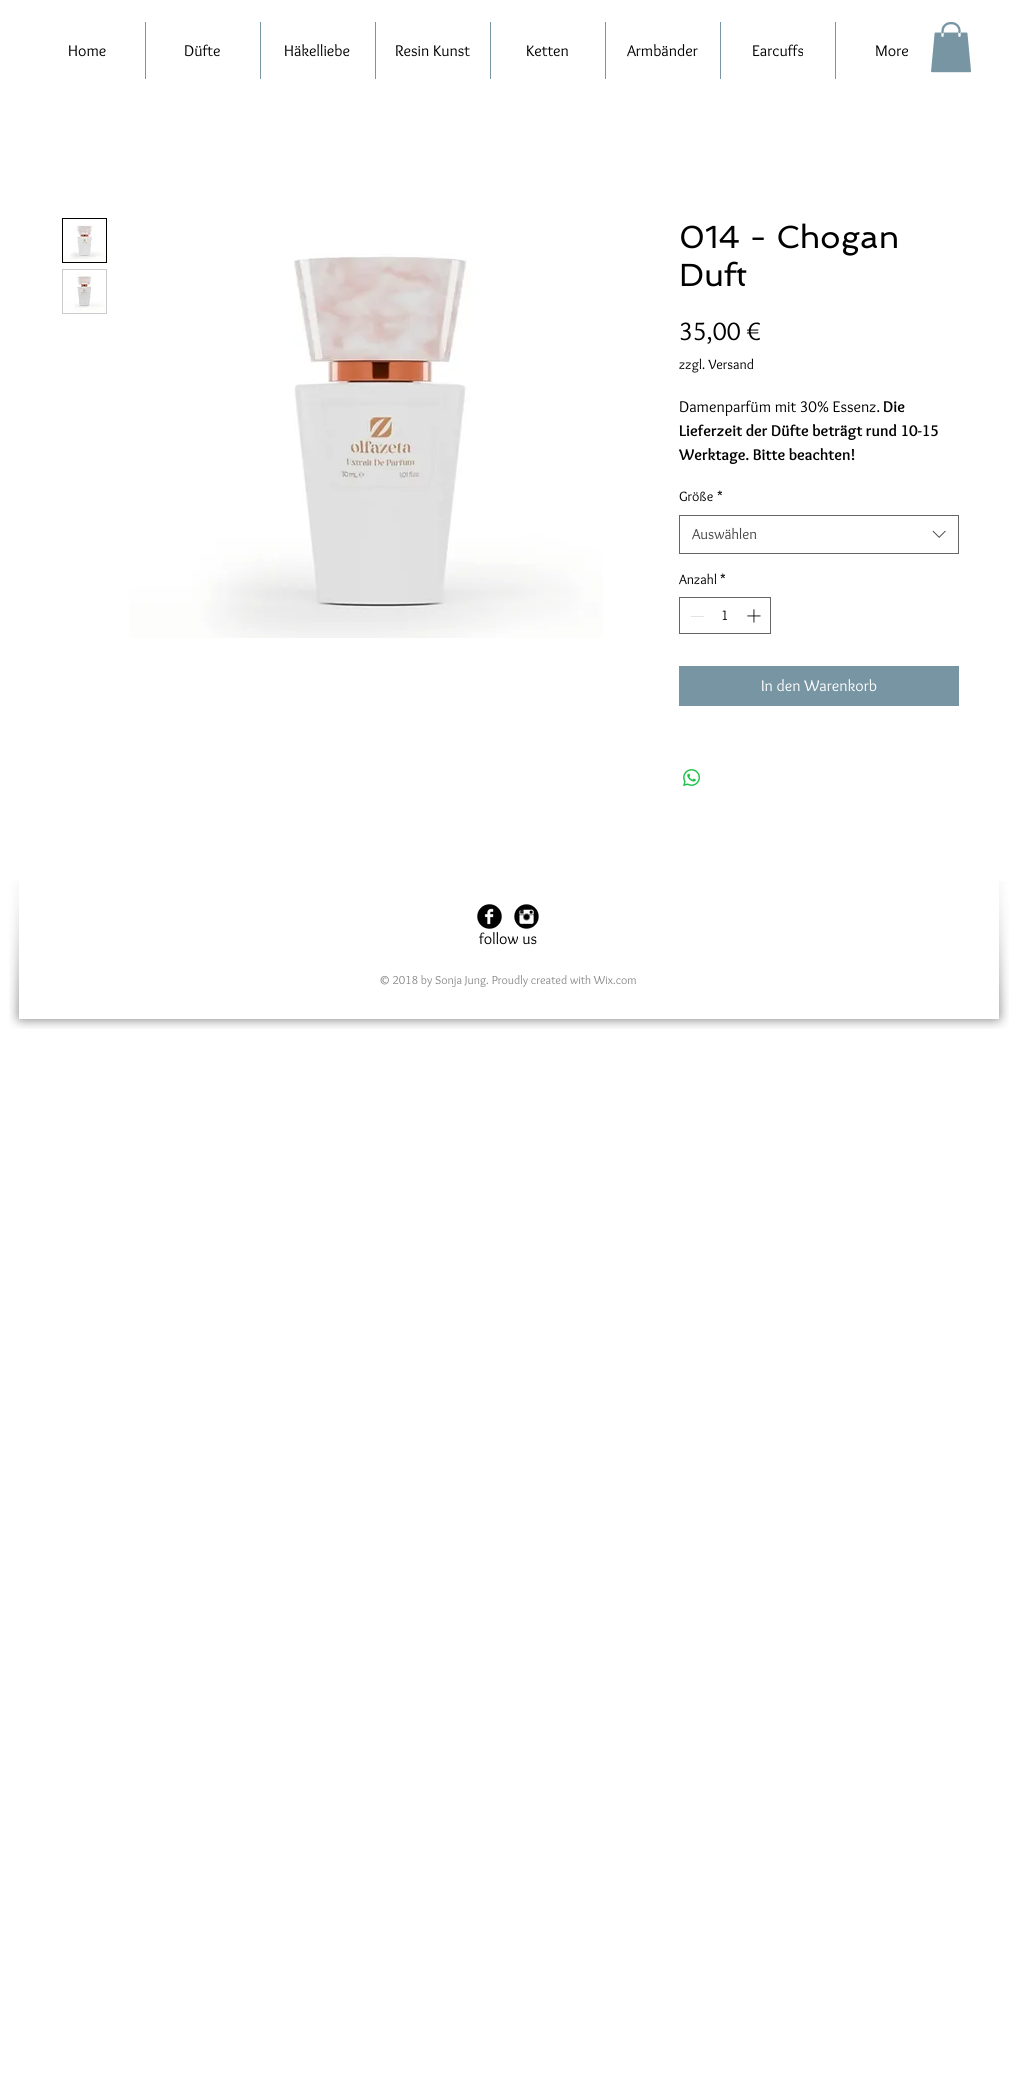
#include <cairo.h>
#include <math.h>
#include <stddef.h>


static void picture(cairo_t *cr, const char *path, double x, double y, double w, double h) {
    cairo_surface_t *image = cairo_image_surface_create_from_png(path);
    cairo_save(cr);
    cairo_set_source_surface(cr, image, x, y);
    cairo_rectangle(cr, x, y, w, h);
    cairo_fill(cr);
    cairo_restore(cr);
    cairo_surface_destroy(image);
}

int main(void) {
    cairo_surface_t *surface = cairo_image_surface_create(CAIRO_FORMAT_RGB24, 1017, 2097);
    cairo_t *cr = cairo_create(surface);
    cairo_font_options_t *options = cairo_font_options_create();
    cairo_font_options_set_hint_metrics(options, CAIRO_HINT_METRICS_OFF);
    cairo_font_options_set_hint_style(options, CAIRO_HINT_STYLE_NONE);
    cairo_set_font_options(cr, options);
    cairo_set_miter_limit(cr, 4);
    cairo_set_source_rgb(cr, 1, 1, 1);
    cairo_paint(cr);
    cairo_select_font_face(cr, "Overlock", CAIRO_FONT_SLANT_NORMAL, CAIRO_FONT_WEIGHT_NORMAL);
    cairo_set_font_size(cr, 16);
    cairo_set_source_rgb(cr, 0, 0, 0);
    cairo_move_to(cr, 68, 56);
    cairo_show_text(cr, "Home");
    cairo_set_source_rgb(cr, 0.467, 0.584, 0.639);
    cairo_rectangle(cr, 145, 22, 1, 57);
    cairo_fill(cr);
    cairo_set_source_rgb(cr, 0, 0, 0);
    cairo_move_to(cr, 184, 56);
    cairo_show_text(cr, "Düfte");
    cairo_set_source_rgb(cr, 0.467, 0.584, 0.639);
    cairo_rectangle(cr, 260, 22, 1, 57);
    cairo_fill(cr);
    cairo_set_source_rgb(cr, 0, 0, 0);
    cairo_move_to(cr, 284, 56);
    cairo_show_text(cr, "Häkelliebe");
    cairo_set_source_rgb(cr, 0.467, 0.584, 0.639);
    cairo_rectangle(cr, 375, 22, 1, 57);
    cairo_fill(cr);
    cairo_set_source_rgb(cr, 0, 0, 0);
    cairo_move_to(cr, 395, 56);
    cairo_show_text(cr, "Resin Kunst");
    cairo_set_source_rgb(cr, 0.467, 0.584, 0.639);
    cairo_rectangle(cr, 490, 22, 1, 57);
    cairo_fill(cr);
    cairo_set_source_rgb(cr, 0, 0, 0);
    cairo_move_to(cr, 526, 56);
    cairo_show_text(cr, "Ketten");
    cairo_set_source_rgb(cr, 0.467, 0.584, 0.639);
    cairo_rectangle(cr, 605, 22, 1, 57);
    cairo_fill(cr);
    cairo_set_source_rgb(cr, 0, 0, 0);
    cairo_move_to(cr, 627, 56);
    cairo_show_text(cr, "Armbänder");
    cairo_set_source_rgb(cr, 0.467, 0.584, 0.639);
    cairo_rectangle(cr, 720, 22, 1, 57);
    cairo_fill(cr);
    cairo_set_source_rgb(cr, 0, 0, 0);
    cairo_move_to(cr, 752, 56);
    cairo_show_text(cr, "Earcuffs");
    cairo_set_source_rgb(cr, 0.467, 0.584, 0.639);
    cairo_rectangle(cr, 835, 22, 1, 57);
    cairo_fill(cr);
    cairo_set_source_rgb(cr, 0, 0, 0);
    cairo_move_to(cr, 875, 56);
    cairo_show_text(cr, "More");
    picture(cr, "img1.png", 931, 22, 40, 51);
    cairo_rectangle(cr, 62.5, 218.5, 44, 44);
    cairo_set_line_width(cr, 1);
    cairo_stroke(cr);
    picture(cr, "img2.png", 63, 219, 43, 43);
    cairo_set_source_rgb(cr, 0.8, 0.8, 0.8);
    cairo_rectangle(cr, 62, 269, 45, 45);
    cairo_fill(cr);
    picture(cr, "img3.png", 63, 270, 43, 43);
    picture(cr, "img4.png", 129, 254, 474, 384);
    cairo_select_font_face(cr, "Spinnaker", CAIRO_FONT_SLANT_NORMAL, CAIRO_FONT_WEIGHT_NORMAL);
    cairo_set_font_size(cr, 32);
    cairo_set_source_rgb(cr, 0, 0, 0);
    cairo_move_to(cr, 679, 248);
    cairo_show_text(cr, "014 - Chogan");
    cairo_move_to(cr, 679, 286);
    cairo_show_text(cr, "Duft");
    cairo_select_font_face(cr, "Overlock", CAIRO_FONT_SLANT_NORMAL, CAIRO_FONT_WEIGHT_NORMAL);
    cairo_set_font_size(cr, 26);
    cairo_move_to(cr, 679, 340);
    cairo_show_text(cr, "35,00 €");
    cairo_set_font_size(cr, 14);
    cairo_move_to(cr, 679, 369);
    cairo_show_text(cr, "zzgl. Versand");
    cairo_set_font_size(cr, 16);
    cairo_move_to(cr, 679, 412);
    cairo_show_text(cr, "Damenparfüm mit 30% Essenz.");
    cairo_select_font_face(cr, "Overlock", CAIRO_FONT_SLANT_NORMAL, CAIRO_FONT_WEIGHT_BOLD);
    cairo_move_to(cr, 883, 412);
    cairo_show_text(cr, "Die");
    cairo_move_to(cr, 679, 436);
    cairo_show_text(cr, "Lieferzeit der Düfte beträgt rund 10-15");
    cairo_move_to(cr, 679, 460);
    cairo_show_text(cr, "Werktage. Bitte beachten!");
    cairo_select_font_face(cr, "Overlock", CAIRO_FONT_SLANT_NORMAL, CAIRO_FONT_WEIGHT_NORMAL);
    cairo_set_font_size(cr, 14);
    cairo_move_to(cr, 679, 501);
    cairo_show_text(cr, "Größe");
    cairo_move_to(cr, 717, 501);
    cairo_show_text(cr, "*");
    cairo_rectangle(cr, 679.5, 515.5, 279, 38);
    cairo_set_source_rgb(cr, 0.4, 0.4, 0.4);
    cairo_stroke(cr);
    cairo_set_font_size(cr, 15);
    cairo_set_source_rgb(cr, 0.267, 0.267, 0.267);
    cairo_move_to(cr, 692, 539);
    cairo_show_text(cr, "Auswählen");
    picture(cr, "img5.png", 932, 530, 14, 8);
    cairo_set_font_size(cr, 14);
    cairo_set_source_rgb(cr, 0, 0, 0);
    cairo_move_to(cr, 679, 584);
    cairo_show_text(cr, "Anzahl");
    cairo_move_to(cr, 720, 584);
    cairo_show_text(cr, "*");
    cairo_rectangle(cr, 679.5, 597.5, 91, 36);
    cairo_set_source_rgb(cr, 0.4, 0.4, 0.4);
    cairo_stroke(cr);
    cairo_set_source_rgb(cr, 0.89, 0.89, 0.89);
    cairo_rectangle(cr, 691, 616, 13, 1);
    cairo_fill(cr);
    cairo_set_source_rgb(cr, 0, 0, 0);
    cairo_move_to(cr, 721, 620);
    cairo_show_text(cr, "1");
    picture(cr, "img6.png", 747, 609, 14, 14);
    cairo_set_source_rgb(cr, 0.467, 0.584, 0.639);
    cairo_rectangle(cr, 679, 666, 280, 40);
    cairo_fill(cr);
    cairo_set_font_size(cr, 16);
    cairo_set_source_rgb(cr, 1, 1, 1);
    cairo_move_to(cr, 761, 691);
    cairo_show_text(cr, "In den Warenkorb");
    picture(cr, "img7.png", 683, 769, 17, 17);
    picture(cr, "img8.png", 9, 881, 45, 148);
    picture(cr, "img10.png", 964, 881, 45, 148);
    cairo_rectangle(cr, 19, 881, 980, 138);
    cairo_fill(cr);
    picture(cr, "img9.png", 54, 1019, 910, 10);
    picture(cr, "img11.png", 477, 904, 25, 25);
    picture(cr, "img12.png", 514, 904, 25, 25);
    cairo_set_source_rgb(cr, 0, 0, 0);
    cairo_move_to(cr, 479, 944);
    cairo_show_text(cr, "follow us");
    cairo_set_font_size(cr, 12);
    cairo_set_source_rgb(cr, 0.545, 0.541, 0.541);
    cairo_move_to(cr, 379, 984);
    cairo_show_text(cr, "© 2018 by Sonja Jung. Proudly created with Wix.com");
    cairo_surface_write_to_png(surface, "page.png");
    cairo_font_options_destroy(options);
    cairo_destroy(cr);
    cairo_surface_destroy(surface);
    return 0;
}
